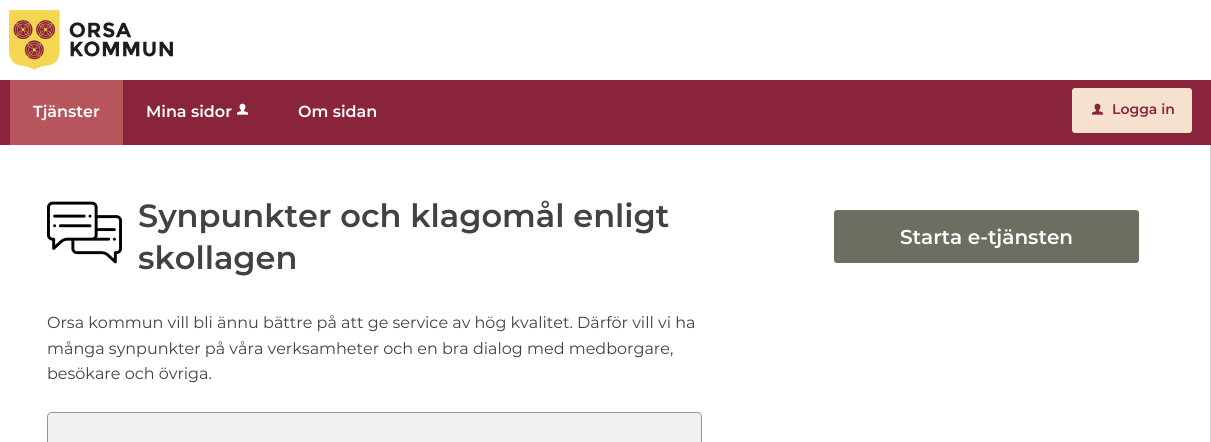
#include <cairo.h>
#include <math.h>
#include <stddef.h>


static void round_rect(cairo_t *cr, double x, double y, double w, double h, double r) {
    cairo_new_sub_path(cr);
    cairo_arc(cr, x + w - r, y + h - r, r, 0, M_PI / 2);
    cairo_arc(cr, x + r, y + h - r, r, M_PI / 2, M_PI);
    cairo_arc(cr, x + r, y + r, r, M_PI, 1.5 * M_PI);
    cairo_arc(cr, x + w - r, y + r, r, 1.5 * M_PI, 2 * M_PI);
    cairo_close_path(cr);
}

static void picture(cairo_t *cr, const char *path, double x, double y, double w, double h) {
    cairo_surface_t *image = cairo_image_surface_create_from_png(path);
    cairo_save(cr);
    cairo_set_source_surface(cr, image, x, y);
    cairo_rectangle(cr, x, y, w, h);
    cairo_fill(cr);
    cairo_restore(cr);
    cairo_surface_destroy(image);
}

int main(void) {
    cairo_surface_t *surface = cairo_image_surface_create(CAIRO_FORMAT_RGB24, 1211, 442);
    cairo_t *cr = cairo_create(surface);
    cairo_font_options_t *options = cairo_font_options_create();
    cairo_font_options_set_hint_metrics(options, CAIRO_HINT_METRICS_OFF);
    cairo_font_options_set_hint_style(options, CAIRO_HINT_STYLE_NONE);
    cairo_set_font_options(cr, options);
    cairo_set_miter_limit(cr, 4);
    cairo_set_source_rgb(cr, 1, 1, 1);
    cairo_paint(cr);
    picture(cr, "img1.png", 9, 10, 164, 60);
    cairo_set_source_rgb(cr, 0.541, 0.137, 0.235);
    cairo_rectangle(cr, 0, 80, 1211, 65);
    cairo_fill(cr);
    cairo_set_source_rgb(cr, 0.718, 0.333, 0.365);
    cairo_rectangle(cr, 10, 80, 113, 65);
    cairo_fill(cr);
    cairo_select_font_face(cr, "Montserrat SemiBold", CAIRO_FONT_SLANT_NORMAL, CAIRO_FONT_WEIGHT_NORMAL);
    cairo_set_font_size(cr, 16);
    cairo_set_source_rgb(cr, 1, 1, 1);
    cairo_move_to(cr, 33, 117);
    cairo_show_text(cr, "Tjänster");
    cairo_move_to(cr, 146, 117);
    cairo_show_text(cr, "Mina sidor");
    picture(cr, "img2.png", 237, 103, 11, 12);
    cairo_move_to(cr, 298, 117);
    cairo_show_text(cr, "Om sidan");
    cairo_set_source_rgb(cr, 0.961, 0.882, 0.808);
    round_rect(cr, 1072, 88, 120, 45, 3);
    cairo_fill(cr);
    picture(cr, "img3.png", 1092, 103, 11, 12);
    cairo_set_font_size(cr, 14);
    cairo_set_source_rgb(cr, 0.541, 0.137, 0.235);
    cairo_move_to(cr, 1112, 114);
    cairo_show_text(cr, "Logga in");
    cairo_set_source_rgb(cr, 0.812, 0.812, 0.812);
    cairo_rectangle(cr, 1210, 145, 1, 297);
    cairo_fill(cr);
    picture(cr, "img4.png", 47, 201, 75, 63);
    cairo_set_font_size(cr, 32);
    cairo_set_source_rgb(cr, 0.259, 0.259, 0.259);
    cairo_move_to(cr, 138, 227);
    cairo_show_text(cr, "Synpunkter och klagomål enligt");
    cairo_move_to(cr, 138, 269);
    cairo_show_text(cr, "skollagen");
    cairo_select_font_face(cr, "Montserrat", CAIRO_FONT_SLANT_NORMAL, CAIRO_FONT_WEIGHT_NORMAL);
    cairo_set_font_size(cr, 16);
    cairo_move_to(cr, 47, 328);
    cairo_show_text(cr, "Orsa kommun vill bli ännu bättre på att ge service av hög kvalitet. Därför vill vi ha");
    cairo_move_to(cr, 47, 354);
    cairo_show_text(cr, "många synpunkter på våra verksamheter och en bra dialog med medborgare,");
    cairo_move_to(cr, 47, 379);
    cairo_show_text(cr, "besökare och övriga.");
    round_rect(cr, 47.5, 412.5, 654, 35, 4.5);
    cairo_set_source_rgb(cr, 0.58, 0.58, 0.58);
    cairo_set_line_width(cr, 1);
    cairo_stroke(cr);
    cairo_set_source_rgb(cr, 0.945, 0.945, 0.945);
    round_rect(cr, 48, 413, 653, 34, 5);
    cairo_fill(cr);
    cairo_set_source_rgb(cr, 0.431, 0.427, 0.38);
    round_rect(cr, 834, 210, 305, 53, 3);
    cairo_fill(cr);
    cairo_select_font_face(cr, "Montserrat SemiBold", CAIRO_FONT_SLANT_NORMAL, CAIRO_FONT_WEIGHT_NORMAL);
    cairo_set_font_size(cr, 20);
    cairo_set_source_rgb(cr, 1, 1, 1);
    cairo_move_to(cr, 900, 244);
    cairo_show_text(cr, "Starta e-tjänsten");
    cairo_surface_write_to_png(surface, "page.png");
    cairo_font_options_destroy(options);
    cairo_destroy(cr);
    cairo_surface_destroy(surface);
    return 0;
}
